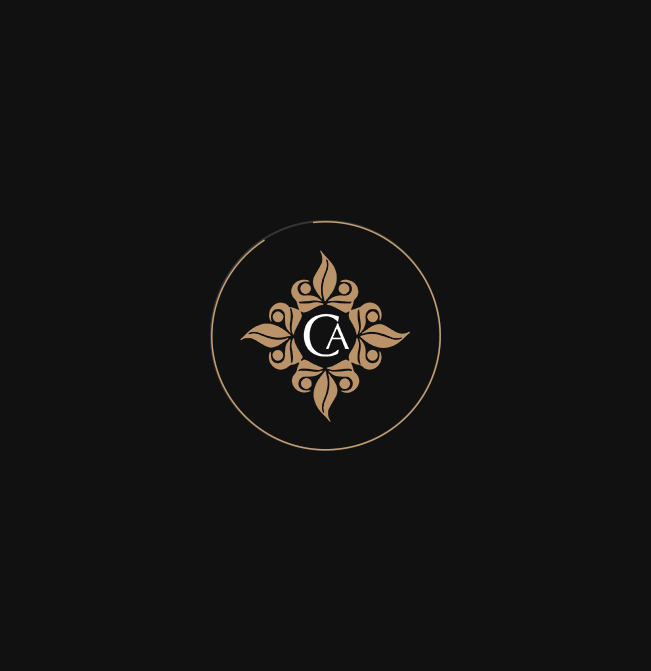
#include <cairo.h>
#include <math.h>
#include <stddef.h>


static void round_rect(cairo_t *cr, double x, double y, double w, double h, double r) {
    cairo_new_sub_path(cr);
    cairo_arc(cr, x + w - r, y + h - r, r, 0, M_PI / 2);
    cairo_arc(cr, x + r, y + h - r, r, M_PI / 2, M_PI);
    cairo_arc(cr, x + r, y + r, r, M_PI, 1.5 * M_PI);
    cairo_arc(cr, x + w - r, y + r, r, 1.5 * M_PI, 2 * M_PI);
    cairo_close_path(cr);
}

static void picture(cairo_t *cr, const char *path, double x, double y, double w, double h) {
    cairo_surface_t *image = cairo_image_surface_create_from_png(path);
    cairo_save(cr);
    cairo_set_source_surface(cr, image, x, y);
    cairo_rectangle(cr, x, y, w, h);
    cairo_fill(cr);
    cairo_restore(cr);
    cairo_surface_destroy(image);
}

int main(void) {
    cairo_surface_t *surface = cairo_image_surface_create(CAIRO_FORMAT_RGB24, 651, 671);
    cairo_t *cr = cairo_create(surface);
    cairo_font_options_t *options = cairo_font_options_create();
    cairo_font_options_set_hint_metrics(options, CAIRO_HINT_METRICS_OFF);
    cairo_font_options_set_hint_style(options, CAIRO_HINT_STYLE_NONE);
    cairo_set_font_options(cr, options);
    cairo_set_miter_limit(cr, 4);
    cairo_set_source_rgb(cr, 0.067, 0.067, 0.067);
    cairo_paint(cr);
    cairo_arc(cr, 325.5, 335.5, 114.5, 0, 2 * M_PI);
    cairo_set_source_rgb(cr, 0.208, 0.208, 0.208);
    cairo_stroke(cr);
    picture(cr, "img1.png", 240, 250, 170, 172);
    cairo_save(cr);
    round_rect(cr, 210, 220, 231, 231, 115.5);
    cairo_clip(cr);
    cairo_new_path(cr);
    cairo_move_to(cr, 264.5, 240);
    cairo_curve_to(cr, 229, 263, 207.5, 304.5, 212.5, 349);
    cairo_curve_to(cr, 220, 411.5, 276.5, 456.5, 339, 449);
    cairo_curve_to(cr, 401.5, 442, 446.5, 385.5, 439.5, 323);
    cairo_curve_to(cr, 432, 260.5, 375.5, 215.5, 313, 222.5);
    cairo_set_source_rgb(cr, 0.776, 0.624, 0.451);
    cairo_set_line_width(cr, 1.5);
    cairo_stroke(cr);
    cairo_restore(cr);
    cairo_surface_write_to_png(surface, "page.png");
    cairo_font_options_destroy(options);
    cairo_destroy(cr);
    cairo_surface_destroy(surface);
    return 0;
}
